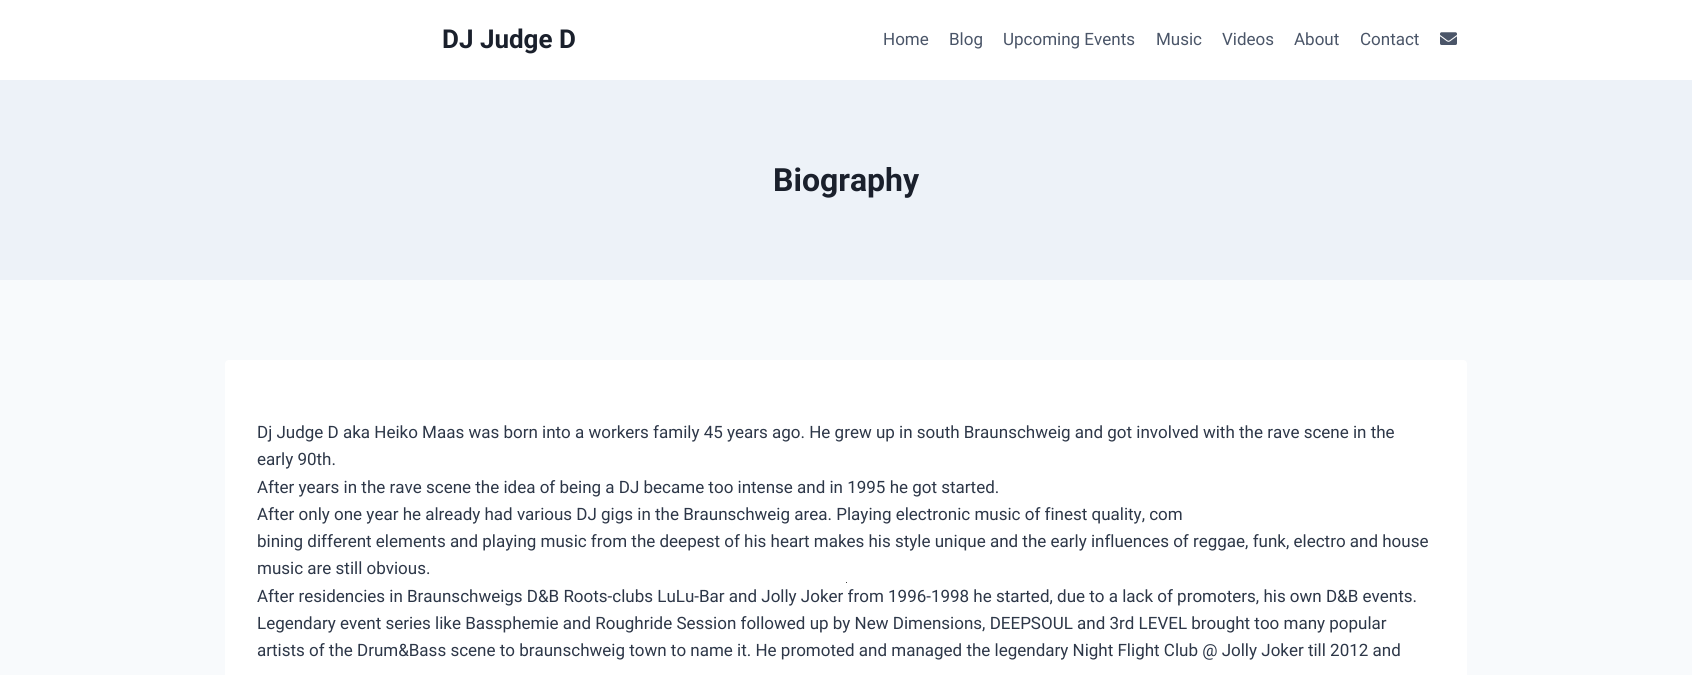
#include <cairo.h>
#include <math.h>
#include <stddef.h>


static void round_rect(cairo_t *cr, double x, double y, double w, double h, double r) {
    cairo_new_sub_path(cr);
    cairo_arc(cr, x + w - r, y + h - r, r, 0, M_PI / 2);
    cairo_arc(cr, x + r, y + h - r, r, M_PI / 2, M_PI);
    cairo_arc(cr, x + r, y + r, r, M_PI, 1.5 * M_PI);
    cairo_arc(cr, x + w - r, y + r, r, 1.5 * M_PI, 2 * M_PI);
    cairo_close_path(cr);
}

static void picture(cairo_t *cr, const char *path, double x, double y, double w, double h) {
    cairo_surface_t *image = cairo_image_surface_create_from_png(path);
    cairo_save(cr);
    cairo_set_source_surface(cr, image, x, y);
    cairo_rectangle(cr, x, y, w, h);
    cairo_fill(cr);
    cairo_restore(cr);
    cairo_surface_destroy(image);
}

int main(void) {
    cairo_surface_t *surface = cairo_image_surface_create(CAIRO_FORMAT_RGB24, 1692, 675);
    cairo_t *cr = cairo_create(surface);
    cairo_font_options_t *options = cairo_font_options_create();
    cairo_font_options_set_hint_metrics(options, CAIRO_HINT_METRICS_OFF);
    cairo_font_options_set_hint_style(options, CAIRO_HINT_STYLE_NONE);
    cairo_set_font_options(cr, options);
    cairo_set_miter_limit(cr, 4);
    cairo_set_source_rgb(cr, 0.969, 0.98, 0.988);
    cairo_paint(cr);
    cairo_set_source_rgb(cr, 1, 1, 1);
    cairo_rectangle(cr, 0, 0, 1692, 80);
    cairo_fill(cr);
    cairo_select_font_face(cr, "Roboto", CAIRO_FONT_SLANT_NORMAL, CAIRO_FONT_WEIGHT_BOLD);
    cairo_set_font_size(cr, 26);
    cairo_set_source_rgb(cr, 0.102, 0.125, 0.173);
    cairo_move_to(cr, 442, 48);
    cairo_show_text(cr, "DJ Judge D");
    cairo_select_font_face(cr, "Roboto", CAIRO_FONT_SLANT_NORMAL, CAIRO_FONT_WEIGHT_NORMAL);
    cairo_set_font_size(cr, 17);
    cairo_set_source_rgb(cr, 0.29, 0.333, 0.408);
    cairo_move_to(cr, 883, 45);
    cairo_show_text(cr, "Home");
    cairo_move_to(cr, 949, 45);
    cairo_show_text(cr, "Blog");
    cairo_move_to(cr, 1003, 45);
    cairo_show_text(cr, "Upcoming Events");
    cairo_move_to(cr, 1156, 45);
    cairo_show_text(cr, "Music");
    cairo_move_to(cr, 1222, 45);
    cairo_show_text(cr, "Videos");
    cairo_move_to(cr, 1294, 45);
    cairo_show_text(cr, "About");
    cairo_move_to(cr, 1360, 45);
    cairo_show_text(cr, "Contact");
    picture(cr, "img1.png", 1440, 32, 17, 13);
    cairo_set_source_rgb(cr, 0.929, 0.949, 0.969);
    cairo_rectangle(cr, 0, 80, 1692, 200);
    cairo_fill(cr);
    cairo_select_font_face(cr, "Roboto", CAIRO_FONT_SLANT_NORMAL, CAIRO_FONT_WEIGHT_BOLD);
    cairo_set_font_size(cr, 32);
    cairo_set_source_rgb(cr, 0.102, 0.125, 0.173);
    cairo_move_to(cr, 773, 191);
    cairo_show_text(cr, "Biography");
    cairo_set_source_rgb(cr, 1, 1, 1);
    round_rect(cr, 225, 360, 1242, 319, 4);
    cairo_fill(cr);
    cairo_select_font_face(cr, "Roboto", CAIRO_FONT_SLANT_NORMAL, CAIRO_FONT_WEIGHT_NORMAL);
    cairo_set_font_size(cr, 17);
    cairo_set_source_rgb(cr, 0.176, 0.216, 0.282);
    cairo_move_to(cr, 257, 438);
    cairo_show_text(cr, "Dj Judge D aka Heiko Maas was born into a workers family 45 years ago. He grew up in south Braunschweig and got involved with the rave scene in the");
    cairo_move_to(cr, 257, 465);
    cairo_show_text(cr, "early 90th.");
    cairo_move_to(cr, 257, 493);
    cairo_show_text(cr, "After years in the rave scene the idea of being a DJ became too intense and in 1995 he got started.");
    cairo_move_to(cr, 257, 520);
    cairo_show_text(cr, "After only one year he already had various DJ gigs in the Braunschweig area. Playing electronic music of finest quality, com");
    cairo_move_to(cr, 257, 547);
    cairo_show_text(cr, "bining different elements and playing music from the deepest of his heart makes his style unique and the early influences of reggae, funk, electro and house");
    cairo_move_to(cr, 257, 574);
    cairo_show_text(cr, "music are still obvious.");
    cairo_set_source_rgb(cr, 0.243, 0.243, 0.243);
    cairo_rectangle(cr, 846, 582, 1, 1);
    cairo_fill(cr);
    cairo_set_source_rgb(cr, 0.176, 0.216, 0.282);
    cairo_move_to(cr, 257, 602);
    cairo_show_text(cr, "After residencies in Braunschweigs D&B Roots-clubs LuLu-Bar and Jolly Joker from 1996-1998 he started, due to a lack of promoters, his own D&B events.");
    cairo_move_to(cr, 257, 629);
    cairo_show_text(cr, "Legendary event series like Bassphemie and Roughride Session followed up by New Dimensions, DEEPSOUL and 3rd LEVEL brought too many popular");
    cairo_move_to(cr, 257, 656);
    cairo_show_text(cr, "artists of the Drum&Bass scene to braunschweig town to name it. He promoted and managed the legendary Night Flight Club @ Jolly Joker till 2012 and");
    cairo_surface_write_to_png(surface, "page.png");
    cairo_font_options_destroy(options);
    cairo_destroy(cr);
    cairo_surface_destroy(surface);
    return 0;
}
